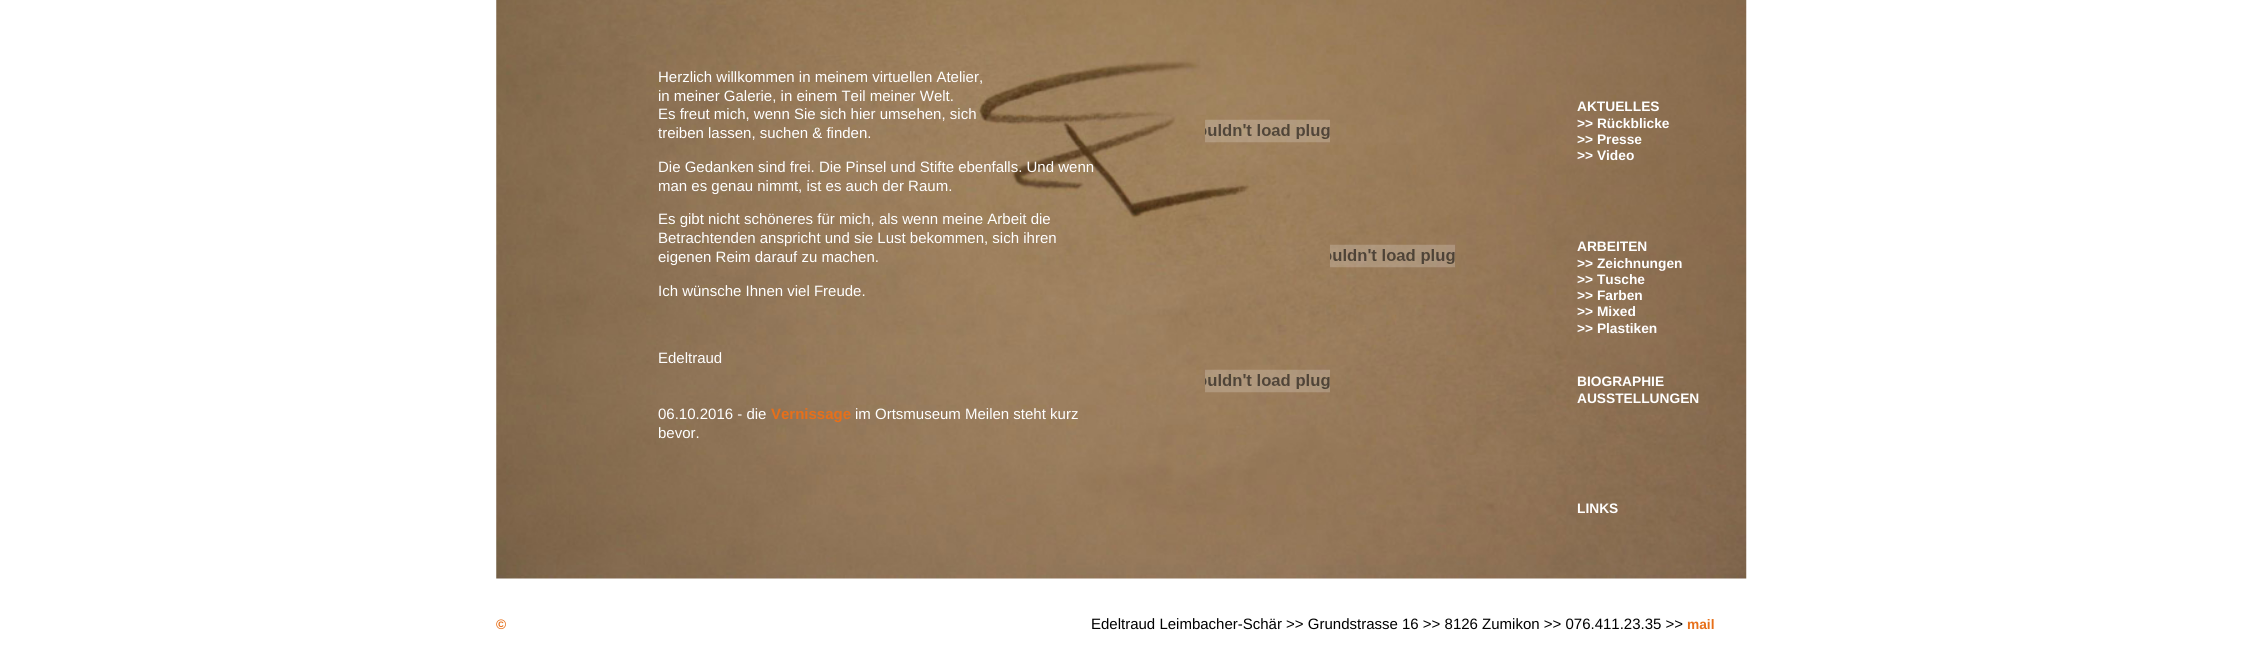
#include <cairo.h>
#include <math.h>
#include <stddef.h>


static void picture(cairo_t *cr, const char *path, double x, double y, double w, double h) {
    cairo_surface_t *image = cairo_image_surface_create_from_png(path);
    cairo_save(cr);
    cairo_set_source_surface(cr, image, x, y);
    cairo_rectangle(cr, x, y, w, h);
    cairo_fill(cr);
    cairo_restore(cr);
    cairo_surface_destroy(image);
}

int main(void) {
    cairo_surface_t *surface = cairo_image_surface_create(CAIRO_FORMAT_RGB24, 2241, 654);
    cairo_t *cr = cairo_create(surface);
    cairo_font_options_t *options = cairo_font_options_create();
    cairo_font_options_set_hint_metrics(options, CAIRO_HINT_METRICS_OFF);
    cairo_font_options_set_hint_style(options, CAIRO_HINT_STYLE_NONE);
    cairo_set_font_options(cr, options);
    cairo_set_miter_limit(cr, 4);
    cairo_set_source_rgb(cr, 1, 1, 1);
    cairo_paint(cr);
    picture(cr, "img1.png", 496, 0, 1251, 579);
    cairo_select_font_face(cr, "Liberation Sans", CAIRO_FONT_SLANT_NORMAL, CAIRO_FONT_WEIGHT_NORMAL);
    cairo_set_font_size(cr, 15);
    cairo_set_source_rgb(cr, 1, 1, 1);
    cairo_move_to(cr, 658, 82);
    cairo_show_text(cr, "Herzlich willkommen in meinem virtuellen Atelier,");
    cairo_move_to(cr, 658, 101);
    cairo_show_text(cr, "in meiner Galerie, in einem Teil meiner Welt.");
    cairo_move_to(cr, 658, 119);
    cairo_show_text(cr, "Es freut mich, wenn Sie sich hier umsehen, sich");
    cairo_move_to(cr, 658, 138);
    cairo_show_text(cr, "treiben lassen, suchen & finden.");
    cairo_move_to(cr, 658, 172);
    cairo_show_text(cr, "Die Gedanken sind frei. Die Pinsel und Stifte ebenfalls. Und wenn");
    cairo_move_to(cr, 658, 191);
    cairo_show_text(cr, "man es genau nimmt, ist es auch der Raum.");
    cairo_move_to(cr, 658, 224);
    cairo_show_text(cr, "Es gibt nicht schöneres für mich, als wenn meine Arbeit die");
    cairo_move_to(cr, 658, 243);
    cairo_show_text(cr, "Betrachtenden anspricht und sie Lust bekommen, sich ihren");
    cairo_move_to(cr, 658, 262);
    cairo_show_text(cr, "eigenen Reim darauf zu machen.");
    cairo_move_to(cr, 658, 296);
    cairo_show_text(cr, "Ich wünsche Ihnen viel Freude.");
    cairo_move_to(cr, 658, 363);
    cairo_show_text(cr, "Edeltraud");
    cairo_move_to(cr, 658, 419);
    cairo_show_text(cr, "06.10.2016 - die");
    cairo_select_font_face(cr, "Liberation Sans", CAIRO_FONT_SLANT_NORMAL, CAIRO_FONT_WEIGHT_BOLD);
    cairo_set_source_rgb(cr, 0.906, 0.435, 0.098);
    cairo_move_to(cr, 771, 419);
    cairo_show_text(cr, "Vernissage");
    cairo_select_font_face(cr, "Liberation Sans", CAIRO_FONT_SLANT_NORMAL, CAIRO_FONT_WEIGHT_NORMAL);
    cairo_set_source_rgb(cr, 1, 1, 1);
    cairo_move_to(cr, 855, 419);
    cairo_show_text(cr, "im Ortsmuseum Meilen steht kurz");
    cairo_move_to(cr, 658, 438);
    cairo_show_text(cr, "bevor.");
    picture(cr, "img2.png", 1205, 119, 125, 24);
    picture(cr, "img3.png", 1330, 244, 125, 24);
    picture(cr, "img4.png", 1205, 369, 125, 24);
    cairo_select_font_face(cr, "Liberation Sans", CAIRO_FONT_SLANT_NORMAL, CAIRO_FONT_WEIGHT_BOLD);
    cairo_set_font_size(cr, 13.75);
    cairo_move_to(cr, 1577, 111);
    cairo_show_text(cr, "AKTUELLES");
    cairo_move_to(cr, 1577, 128);
    cairo_show_text(cr, ">> Rückblicke");
    cairo_move_to(cr, 1577, 144);
    cairo_show_text(cr, ">> Presse");
    cairo_move_to(cr, 1577, 160);
    cairo_show_text(cr, ">> Video");
    cairo_move_to(cr, 1577, 251);
    cairo_show_text(cr, "ARBEITEN");
    cairo_move_to(cr, 1577, 268);
    cairo_show_text(cr, ">> Zeichnungen");
    cairo_move_to(cr, 1577, 284);
    cairo_show_text(cr, ">> Tusche");
    cairo_move_to(cr, 1577, 300);
    cairo_show_text(cr, ">> Farben");
    cairo_move_to(cr, 1577, 316);
    cairo_show_text(cr, ">> Mixed");
    cairo_move_to(cr, 1577, 333);
    cairo_show_text(cr, ">> Plastiken");
    cairo_move_to(cr, 1577, 386);
    cairo_show_text(cr, "BIOGRAPHIE");
    cairo_move_to(cr, 1577, 403);
    cairo_show_text(cr, "AUSSTELLUNGEN");
    cairo_move_to(cr, 1577, 513);
    cairo_show_text(cr, "LINKS");
    cairo_set_source_rgb(cr, 0.906, 0.435, 0.098);
    cairo_move_to(cr, 496, 629);
    cairo_show_text(cr, "©");
    cairo_select_font_face(cr, "Liberation Sans", CAIRO_FONT_SLANT_NORMAL, CAIRO_FONT_WEIGHT_NORMAL);
    cairo_set_font_size(cr, 15);
    cairo_set_source_rgb(cr, 0, 0, 0);
    cairo_move_to(cr, 1091, 629);
    cairo_show_text(cr, "Edeltraud Leimbacher-Schär >> Grundstrasse 16 >> 8126 Zumikon >> 076.411.23.35 >>");
    cairo_select_font_face(cr, "Liberation Sans", CAIRO_FONT_SLANT_NORMAL, CAIRO_FONT_WEIGHT_BOLD);
    cairo_set_font_size(cr, 13.75);
    cairo_set_source_rgb(cr, 0.906, 0.435, 0.098);
    cairo_move_to(cr, 1687, 629);
    cairo_show_text(cr, "mail");
    cairo_surface_write_to_png(surface, "page.png");
    cairo_font_options_destroy(options);
    cairo_destroy(cr);
    cairo_surface_destroy(surface);
    return 0;
}
